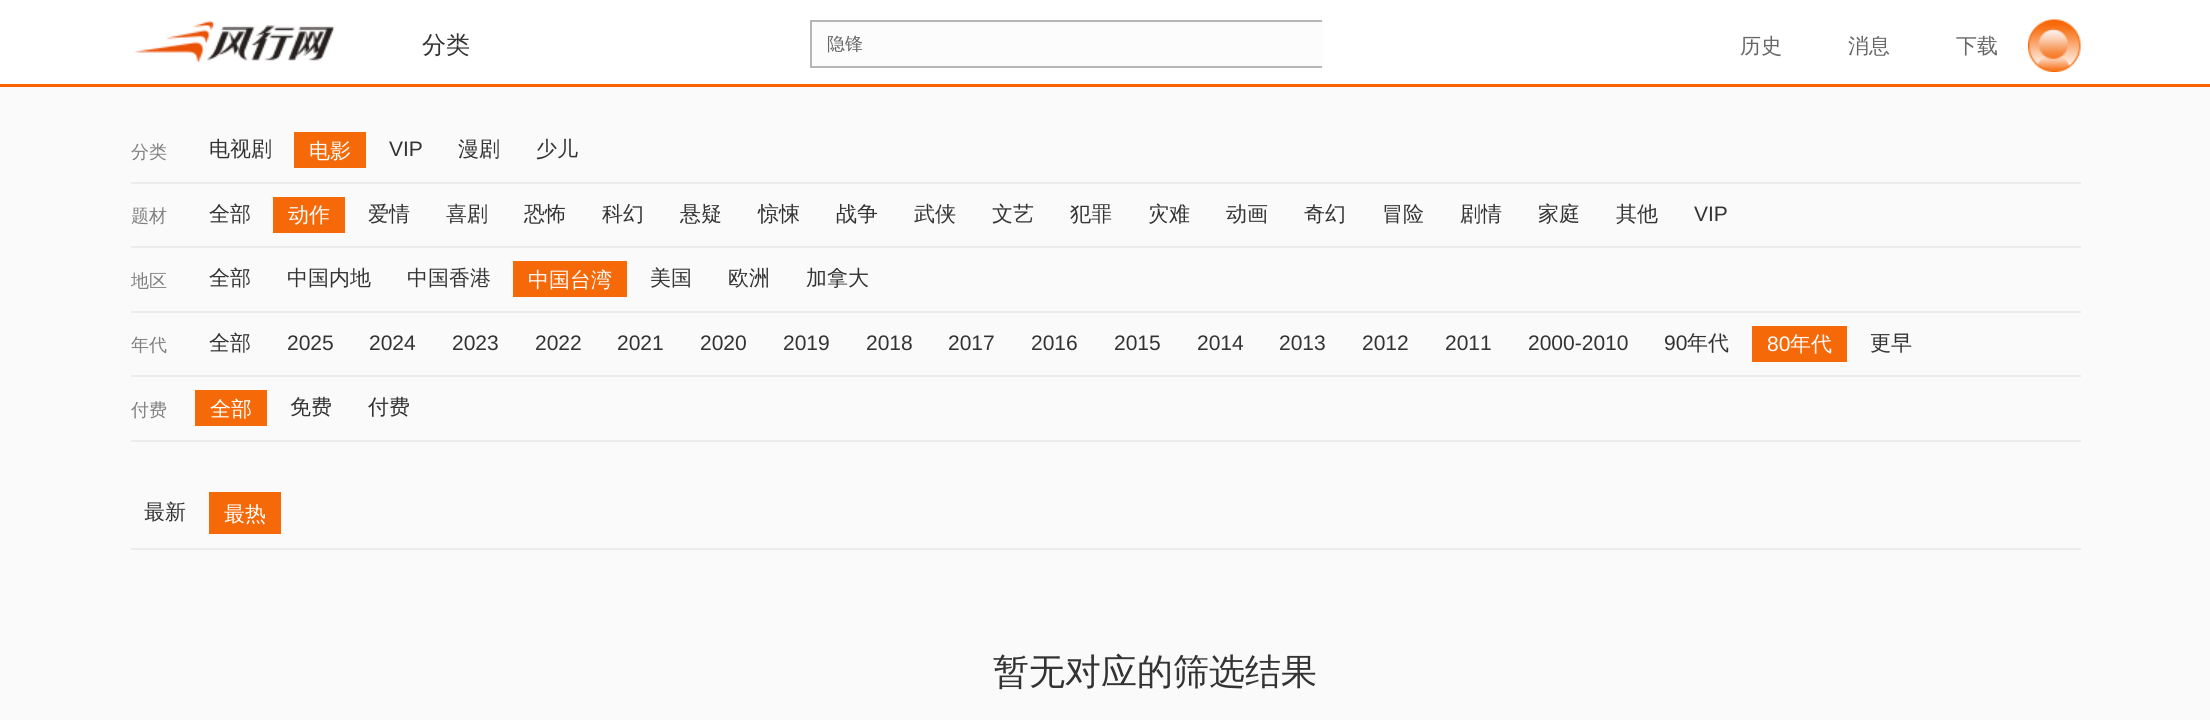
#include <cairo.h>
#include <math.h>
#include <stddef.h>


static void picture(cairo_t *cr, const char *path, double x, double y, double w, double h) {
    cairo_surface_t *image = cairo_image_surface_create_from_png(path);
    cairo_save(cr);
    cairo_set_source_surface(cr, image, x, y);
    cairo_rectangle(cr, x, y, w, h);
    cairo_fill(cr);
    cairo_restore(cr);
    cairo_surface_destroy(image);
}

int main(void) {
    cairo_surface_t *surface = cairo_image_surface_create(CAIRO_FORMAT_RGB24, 2210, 720);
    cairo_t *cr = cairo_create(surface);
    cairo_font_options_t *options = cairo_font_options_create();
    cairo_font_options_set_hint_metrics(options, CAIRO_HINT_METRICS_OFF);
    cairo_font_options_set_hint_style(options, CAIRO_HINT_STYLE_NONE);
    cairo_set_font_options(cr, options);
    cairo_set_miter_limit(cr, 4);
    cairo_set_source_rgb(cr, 0.98, 0.98, 0.98);
    cairo_paint(cr);
    cairo_set_source_rgb(cr, 1, 1, 1);
    cairo_rectangle(cr, 0, 0, 2210, 84);
    cairo_fill(cr);
    cairo_set_source_rgb(cr, 0.973, 0.392, 0);
    cairo_rectangle(cr, 0, 84, 2210, 3);
    cairo_fill(cr);
    picture(cr, "img1.png", 135, 20, 200, 43);
    cairo_select_font_face(cr, "WenQuanYi Zen Hei Medium", CAIRO_FONT_SLANT_NORMAL, CAIRO_FONT_WEIGHT_NORMAL);
    cairo_set_font_size(cr, 24);
    cairo_set_source_rgb(cr, 0.2, 0.2, 0.2);
    cairo_move_to(cr, 422, 53);
    cairo_show_text(cr, "分类");
    cairo_set_source_rgb(cr, 0.988, 0.988, 0.988);
    cairo_rectangle(cr, 812, 22, 510, 44);
    cairo_fill(cr);
    cairo_set_source_rgb(cr, 0.714, 0.714, 0.714);
    cairo_rectangle(cr, 810, 20, 512, 2);
    cairo_fill(cr);
    cairo_rectangle(cr, 810, 66, 512, 2);
    cairo_fill(cr);
    cairo_rectangle(cr, 810, 20, 2, 48);
    cairo_fill(cr);
    cairo_set_font_size(cr, 18);
    cairo_set_source_rgb(cr, 0.4, 0.4, 0.4);
    cairo_move_to(cr, 827, 50);
    cairo_show_text(cr, "隐锋");
    cairo_set_font_size(cr, 21);
    cairo_move_to(cr, 1740, 53);
    cairo_show_text(cr, "历史");
    cairo_move_to(cr, 1848, 53);
    cairo_show_text(cr, "消息");
    cairo_move_to(cr, 1956, 53);
    cairo_show_text(cr, "下载");
    picture(cr, "img2.png", 2028, 19, 53, 53);
    cairo_set_source_rgb(cr, 0.922, 0.922, 0.922);
    cairo_rectangle(cr, 131, 182, 1950, 2);
    cairo_fill(cr);
    cairo_set_font_size(cr, 18);
    cairo_set_source_rgb(cr, 0.502, 0.502, 0.502);
    cairo_move_to(cr, 131, 158);
    cairo_show_text(cr, "分类");
    cairo_set_font_size(cr, 21);
    cairo_set_source_rgb(cr, 0.2, 0.2, 0.2);
    cairo_move_to(cr, 209, 156);
    cairo_show_text(cr, "电视剧");
    cairo_set_source_rgb(cr, 0.961, 0.412, 0.039);
    cairo_rectangle(cr, 294, 132, 72, 36);
    cairo_fill(cr);
    cairo_set_source_rgb(cr, 1, 1, 1);
    cairo_move_to(cr, 309, 158);
    cairo_show_text(cr, "电影");
    cairo_select_font_face(cr, "Liberation Sans", CAIRO_FONT_SLANT_NORMAL, CAIRO_FONT_WEIGHT_NORMAL);
    cairo_set_source_rgb(cr, 0.2, 0.2, 0.2);
    cairo_move_to(cr, 389, 156);
    cairo_show_text(cr, "VIP");
    cairo_select_font_face(cr, "WenQuanYi Zen Hei Medium", CAIRO_FONT_SLANT_NORMAL, CAIRO_FONT_WEIGHT_NORMAL);
    cairo_move_to(cr, 458, 156);
    cairo_show_text(cr, "漫剧");
    cairo_move_to(cr, 536, 156);
    cairo_show_text(cr, "少儿");
    cairo_set_source_rgb(cr, 0.922, 0.922, 0.922);
    cairo_rectangle(cr, 131, 246, 1950, 2);
    cairo_fill(cr);
    cairo_set_font_size(cr, 18);
    cairo_set_source_rgb(cr, 0.502, 0.502, 0.502);
    cairo_move_to(cr, 131, 222);
    cairo_show_text(cr, "题材");
    cairo_set_font_size(cr, 21);
    cairo_set_source_rgb(cr, 0.2, 0.2, 0.2);
    cairo_move_to(cr, 209, 221);
    cairo_show_text(cr, "全部");
    cairo_set_source_rgb(cr, 0.961, 0.412, 0.039);
    cairo_rectangle(cr, 273, 197, 72, 36);
    cairo_fill(cr);
    cairo_set_source_rgb(cr, 1, 1, 1);
    cairo_move_to(cr, 288, 222);
    cairo_show_text(cr, "动作");
    cairo_set_source_rgb(cr, 0.2, 0.2, 0.2);
    cairo_move_to(cr, 368, 221);
    cairo_show_text(cr, "爱情");
    cairo_move_to(cr, 446, 221);
    cairo_show_text(cr, "喜剧");
    cairo_move_to(cr, 524, 221);
    cairo_show_text(cr, "恐怖");
    cairo_move_to(cr, 602, 221);
    cairo_show_text(cr, "科幻");
    cairo_move_to(cr, 680, 221);
    cairo_show_text(cr, "悬疑");
    cairo_move_to(cr, 758, 221);
    cairo_show_text(cr, "惊悚");
    cairo_move_to(cr, 836, 221);
    cairo_show_text(cr, "战争");
    cairo_move_to(cr, 914, 221);
    cairo_show_text(cr, "武侠");
    cairo_move_to(cr, 992, 221);
    cairo_show_text(cr, "文艺");
    cairo_move_to(cr, 1070, 221);
    cairo_show_text(cr, "犯罪");
    cairo_move_to(cr, 1148, 221);
    cairo_show_text(cr, "灾难");
    cairo_move_to(cr, 1226, 221);
    cairo_show_text(cr, "动画");
    cairo_move_to(cr, 1304, 221);
    cairo_show_text(cr, "奇幻");
    cairo_move_to(cr, 1382, 221);
    cairo_show_text(cr, "冒险");
    cairo_move_to(cr, 1460, 221);
    cairo_show_text(cr, "剧情");
    cairo_move_to(cr, 1538, 221);
    cairo_show_text(cr, "家庭");
    cairo_move_to(cr, 1616, 221);
    cairo_show_text(cr, "其他");
    cairo_select_font_face(cr, "Liberation Sans", CAIRO_FONT_SLANT_NORMAL, CAIRO_FONT_WEIGHT_NORMAL);
    cairo_move_to(cr, 1694, 221);
    cairo_show_text(cr, "VIP");
    cairo_set_source_rgb(cr, 0.922, 0.922, 0.922);
    cairo_rectangle(cr, 131, 311, 1950, 2);
    cairo_fill(cr);
    cairo_select_font_face(cr, "WenQuanYi Zen Hei Medium", CAIRO_FONT_SLANT_NORMAL, CAIRO_FONT_WEIGHT_NORMAL);
    cairo_set_font_size(cr, 18);
    cairo_set_source_rgb(cr, 0.502, 0.502, 0.502);
    cairo_move_to(cr, 131, 287);
    cairo_show_text(cr, "地区");
    cairo_set_font_size(cr, 21);
    cairo_set_source_rgb(cr, 0.2, 0.2, 0.2);
    cairo_move_to(cr, 209, 285);
    cairo_show_text(cr, "全部");
    cairo_move_to(cr, 287, 285);
    cairo_show_text(cr, "中国内地");
    cairo_move_to(cr, 407, 285);
    cairo_show_text(cr, "中国香港");
    cairo_set_source_rgb(cr, 0.961, 0.412, 0.039);
    cairo_rectangle(cr, 513, 261, 114, 36);
    cairo_fill(cr);
    cairo_set_source_rgb(cr, 1, 1, 1);
    cairo_move_to(cr, 528, 287);
    cairo_show_text(cr, "中国台湾");
    cairo_set_source_rgb(cr, 0.2, 0.2, 0.2);
    cairo_move_to(cr, 650, 285);
    cairo_show_text(cr, "美国");
    cairo_move_to(cr, 728, 285);
    cairo_show_text(cr, "欧洲");
    cairo_move_to(cr, 806, 285);
    cairo_show_text(cr, "加拿大");
    cairo_set_source_rgb(cr, 0.922, 0.922, 0.922);
    cairo_rectangle(cr, 131, 375, 1950, 2);
    cairo_fill(cr);
    cairo_set_font_size(cr, 18);
    cairo_set_source_rgb(cr, 0.502, 0.502, 0.502);
    cairo_move_to(cr, 131, 351);
    cairo_show_text(cr, "年代");
    cairo_set_font_size(cr, 21);
    cairo_set_source_rgb(cr, 0.2, 0.2, 0.2);
    cairo_move_to(cr, 209, 350);
    cairo_show_text(cr, "全部");
    cairo_select_font_face(cr, "Liberation Sans", CAIRO_FONT_SLANT_NORMAL, CAIRO_FONT_WEIGHT_NORMAL);
    cairo_move_to(cr, 287, 350);
    cairo_show_text(cr, "2025");
    cairo_move_to(cr, 369, 350);
    cairo_show_text(cr, "2024");
    cairo_move_to(cr, 452, 350);
    cairo_show_text(cr, "2023");
    cairo_move_to(cr, 535, 350);
    cairo_show_text(cr, "2022");
    cairo_move_to(cr, 617, 350);
    cairo_show_text(cr, "2021");
    cairo_move_to(cr, 700, 350);
    cairo_show_text(cr, "2020");
    cairo_move_to(cr, 783, 350);
    cairo_show_text(cr, "2019");
    cairo_move_to(cr, 866, 350);
    cairo_show_text(cr, "2018");
    cairo_move_to(cr, 948, 350);
    cairo_show_text(cr, "2017");
    cairo_move_to(cr, 1031, 350);
    cairo_show_text(cr, "2016");
    cairo_move_to(cr, 1114, 350);
    cairo_show_text(cr, "2015");
    cairo_move_to(cr, 1197, 350);
    cairo_show_text(cr, "2014");
    cairo_move_to(cr, 1279, 350);
    cairo_show_text(cr, "2013");
    cairo_move_to(cr, 1362, 350);
    cairo_show_text(cr, "2012");
    cairo_move_to(cr, 1445, 350);
    cairo_show_text(cr, "2011");
    cairo_move_to(cr, 1528, 350);
    cairo_show_text(cr, "2000-2010");
    cairo_move_to(cr, 1664, 350);
    cairo_show_text(cr, "90");
    cairo_select_font_face(cr, "WenQuanYi Zen Hei Medium", CAIRO_FONT_SLANT_NORMAL, CAIRO_FONT_WEIGHT_NORMAL);
    cairo_move_to(cr, 1687, 350);
    cairo_show_text(cr, "年代");
    cairo_set_source_rgb(cr, 0.961, 0.412, 0.039);
    cairo_rectangle(cr, 1752, 326, 95, 36);
    cairo_fill(cr);
    cairo_select_font_face(cr, "Liberation Sans", CAIRO_FONT_SLANT_NORMAL, CAIRO_FONT_WEIGHT_NORMAL);
    cairo_set_source_rgb(cr, 1, 1, 1);
    cairo_move_to(cr, 1767, 351);
    cairo_show_text(cr, "80");
    cairo_select_font_face(cr, "WenQuanYi Zen Hei Medium", CAIRO_FONT_SLANT_NORMAL, CAIRO_FONT_WEIGHT_NORMAL);
    cairo_move_to(cr, 1790, 351);
    cairo_show_text(cr, "年代");
    cairo_set_source_rgb(cr, 0.2, 0.2, 0.2);
    cairo_move_to(cr, 1870, 350);
    cairo_show_text(cr, "更早");
    cairo_set_source_rgb(cr, 0.922, 0.922, 0.922);
    cairo_rectangle(cr, 131, 440, 1950, 2);
    cairo_fill(cr);
    cairo_set_font_size(cr, 18);
    cairo_set_source_rgb(cr, 0.502, 0.502, 0.502);
    cairo_move_to(cr, 131, 416);
    cairo_show_text(cr, "付费");
    cairo_set_source_rgb(cr, 0.961, 0.412, 0.039);
    cairo_rectangle(cr, 195, 390, 72, 36);
    cairo_fill(cr);
    cairo_set_font_size(cr, 21);
    cairo_set_source_rgb(cr, 1, 1, 1);
    cairo_move_to(cr, 210, 416);
    cairo_show_text(cr, "全部");
    cairo_set_source_rgb(cr, 0.2, 0.2, 0.2);
    cairo_move_to(cr, 290, 414);
    cairo_show_text(cr, "免费");
    cairo_move_to(cr, 368, 414);
    cairo_show_text(cr, "付费");
    cairo_set_source_rgb(cr, 0.922, 0.922, 0.922);
    cairo_rectangle(cr, 131, 548, 1950, 2);
    cairo_fill(cr);
    cairo_set_source_rgb(cr, 0.2, 0.2, 0.2);
    cairo_move_to(cr, 144, 519);
    cairo_show_text(cr, "最新");
    cairo_set_source_rgb(cr, 0.961, 0.412, 0.039);
    cairo_rectangle(cr, 209, 492, 72, 42);
    cairo_fill(cr);
    cairo_set_source_rgb(cr, 1, 1, 1);
    cairo_move_to(cr, 224, 521);
    cairo_show_text(cr, "最热");
    cairo_set_font_size(cr, 36);
    cairo_set_source_rgb(cr, 0.2, 0.2, 0.2);
    cairo_move_to(cr, 993, 684);
    cairo_show_text(cr, "暂无对应的筛选结果");
    cairo_surface_write_to_png(surface, "page.png");
    cairo_font_options_destroy(options);
    cairo_destroy(cr);
    cairo_surface_destroy(surface);
    return 0;
}
